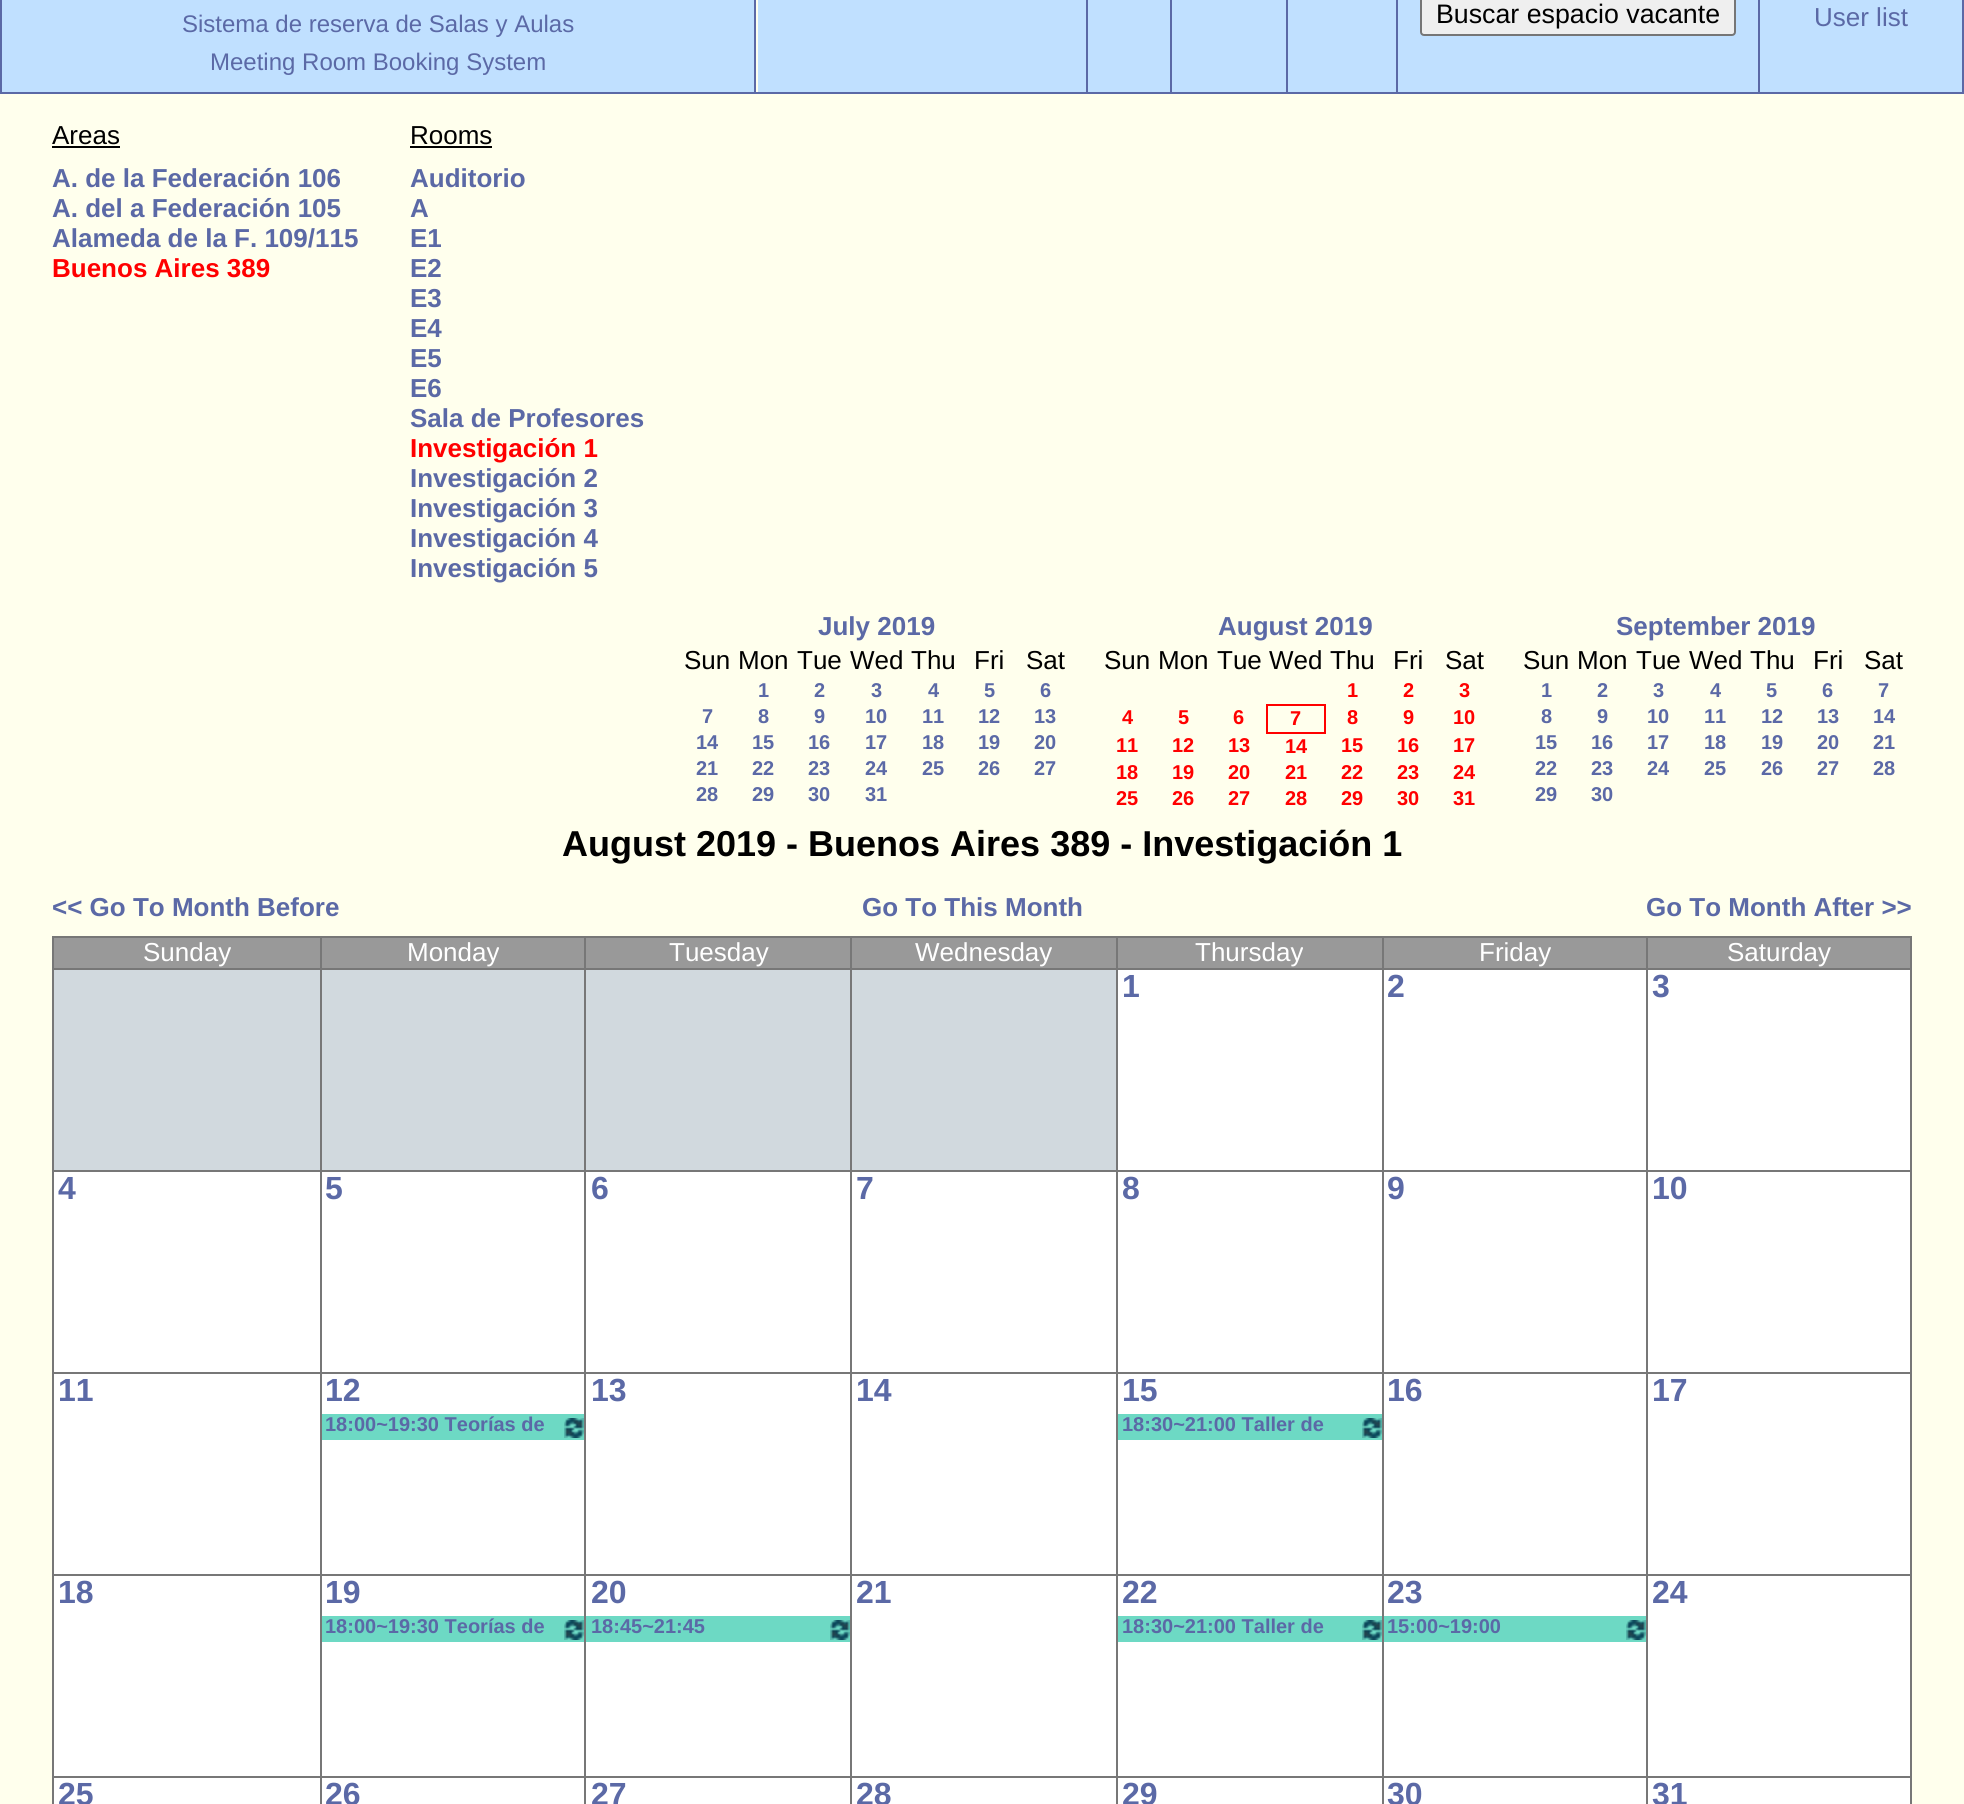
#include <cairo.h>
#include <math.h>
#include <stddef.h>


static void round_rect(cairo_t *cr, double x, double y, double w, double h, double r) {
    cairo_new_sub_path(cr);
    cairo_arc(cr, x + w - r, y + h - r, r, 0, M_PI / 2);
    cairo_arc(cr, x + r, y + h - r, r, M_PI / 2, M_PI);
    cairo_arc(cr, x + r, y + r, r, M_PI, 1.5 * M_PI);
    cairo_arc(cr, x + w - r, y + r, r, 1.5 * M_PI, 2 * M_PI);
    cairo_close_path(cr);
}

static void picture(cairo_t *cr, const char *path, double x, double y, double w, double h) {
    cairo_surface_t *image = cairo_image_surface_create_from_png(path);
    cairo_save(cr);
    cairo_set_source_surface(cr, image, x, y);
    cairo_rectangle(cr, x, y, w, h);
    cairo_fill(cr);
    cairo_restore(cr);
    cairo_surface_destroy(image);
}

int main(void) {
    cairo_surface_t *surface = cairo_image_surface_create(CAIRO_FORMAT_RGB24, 1964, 1804);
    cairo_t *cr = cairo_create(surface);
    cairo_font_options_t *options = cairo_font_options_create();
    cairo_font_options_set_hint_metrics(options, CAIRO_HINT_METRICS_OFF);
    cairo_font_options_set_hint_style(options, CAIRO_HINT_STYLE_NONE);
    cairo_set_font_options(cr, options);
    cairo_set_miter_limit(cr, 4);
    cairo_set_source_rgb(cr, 1, 1, 0.929);
    cairo_paint(cr);
    cairo_set_source_rgb(cr, 0.357, 0.412, 0.651);
    cairo_rectangle(cr, 1962, 0, 2, 94);
    cairo_fill(cr);
    cairo_rectangle(cr, 0, 92, 1964, 2);
    cairo_fill(cr);
    cairo_rectangle(cr, 0, 0, 2, 94);
    cairo_fill(cr);
    cairo_set_source_rgb(cr, 0.753, 0.878, 1);
    cairo_rectangle(cr, 2, 0, 752, 92);
    cairo_fill(cr);
    cairo_select_font_face(cr, "Liberation Sans", CAIRO_FONT_SLANT_NORMAL, CAIRO_FONT_WEIGHT_NORMAL);
    cairo_set_font_size(cr, 24);
    cairo_set_source_rgb(cr, 0.357, 0.412, 0.651);
    cairo_move_to(cr, 182, 32);
    cairo_show_text(cr, "Sistema de reserva de Salas y Aulas");
    cairo_move_to(cr, 210, 70);
    cairo_show_text(cr, "Meeting Room Booking System");
    cairo_set_source_rgb(cr, 0.753, 0.878, 1);
    cairo_rectangle(cr, 758, 0, 328, 92);
    cairo_fill(cr);
    cairo_set_source_rgb(cr, 0.357, 0.412, 0.651);
    cairo_rectangle(cr, 754, 0, 2, 94);
    cairo_fill(cr);
    cairo_set_source_rgb(cr, 0.753, 0.878, 1);
    cairo_rectangle(cr, 1088, 0, 82, 92);
    cairo_fill(cr);
    cairo_set_source_rgb(cr, 0.357, 0.412, 0.651);
    cairo_rectangle(cr, 1086, 0, 2, 94);
    cairo_fill(cr);
    cairo_set_source_rgb(cr, 0.753, 0.878, 1);
    cairo_rectangle(cr, 1172, 0, 114, 92);
    cairo_fill(cr);
    cairo_set_source_rgb(cr, 0.357, 0.412, 0.651);
    cairo_rectangle(cr, 1170, 0, 2, 94);
    cairo_fill(cr);
    cairo_set_source_rgb(cr, 0.753, 0.878, 1);
    cairo_rectangle(cr, 1288, 0, 108, 92);
    cairo_fill(cr);
    cairo_set_source_rgb(cr, 0.357, 0.412, 0.651);
    cairo_rectangle(cr, 1286, 0, 2, 94);
    cairo_fill(cr);
    cairo_set_source_rgb(cr, 0.753, 0.878, 1);
    cairo_rectangle(cr, 1398, 0, 360, 92);
    cairo_fill(cr);
    cairo_set_source_rgb(cr, 0.357, 0.412, 0.651);
    cairo_rectangle(cr, 1396, 0, 2, 94);
    cairo_fill(cr);
    cairo_set_source_rgb(cr, 0.937, 0.937, 0.937);
    round_rect(cr, 1421, -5, 314, 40, 3);
    cairo_fill_preserve(cr);
    cairo_set_source_rgb(cr, 0.463, 0.463, 0.463);
    cairo_stroke(cr);
    cairo_set_font_size(cr, 26.75);
    cairo_set_source_rgb(cr, 0, 0, 0);
    cairo_move_to(cr, 1436, 23);
    cairo_show_text(cr, "Buscar espacio vacante");
    cairo_set_source_rgb(cr, 0.753, 0.878, 1);
    cairo_rectangle(cr, 1760, 0, 202, 92);
    cairo_fill(cr);
    cairo_set_source_rgb(cr, 0.357, 0.412, 0.651);
    cairo_rectangle(cr, 1758, 0, 2, 94);
    cairo_fill(cr);
    cairo_set_font_size(cr, 26);
    cairo_move_to(cr, 1814, 26);
    cairo_show_text(cr, "User list");
    cairo_set_source_rgb(cr, 0, 0, 0);
    cairo_move_to(cr, 52, 144);
    cairo_show_text(cr, "Areas");
    cairo_rectangle(cr, 52, 146, 68, 2);
    cairo_fill(cr);
    cairo_select_font_face(cr, "Liberation Sans", CAIRO_FONT_SLANT_NORMAL, CAIRO_FONT_WEIGHT_BOLD);
    cairo_set_source_rgb(cr, 0.357, 0.412, 0.651);
    cairo_move_to(cr, 52, 187);
    cairo_show_text(cr, "A. de la Federación 106");
    cairo_move_to(cr, 52, 217);
    cairo_show_text(cr, "A. del a Federación 105");
    cairo_move_to(cr, 52, 247);
    cairo_show_text(cr, "Alameda de la F. 109/115");
    cairo_set_source_rgb(cr, 1, 0, 0);
    cairo_move_to(cr, 52, 277);
    cairo_show_text(cr, "Buenos Aires 389");
    cairo_select_font_face(cr, "Liberation Sans", CAIRO_FONT_SLANT_NORMAL, CAIRO_FONT_WEIGHT_NORMAL);
    cairo_set_source_rgb(cr, 0, 0, 0);
    cairo_move_to(cr, 410, 144);
    cairo_show_text(cr, "Rooms");
    cairo_rectangle(cr, 410, 146, 82, 2);
    cairo_fill(cr);
    cairo_select_font_face(cr, "Liberation Sans", CAIRO_FONT_SLANT_NORMAL, CAIRO_FONT_WEIGHT_BOLD);
    cairo_set_source_rgb(cr, 0.357, 0.412, 0.651);
    cairo_move_to(cr, 410, 187);
    cairo_show_text(cr, "Auditorio");
    cairo_move_to(cr, 410, 217);
    cairo_show_text(cr, "A");
    cairo_move_to(cr, 410, 247);
    cairo_show_text(cr, "E1");
    cairo_move_to(cr, 410, 277);
    cairo_show_text(cr, "E2");
    cairo_move_to(cr, 410, 307);
    cairo_show_text(cr, "E3");
    cairo_move_to(cr, 410, 337);
    cairo_show_text(cr, "E4");
    cairo_move_to(cr, 410, 367);
    cairo_show_text(cr, "E5");
    cairo_move_to(cr, 410, 397);
    cairo_show_text(cr, "E6");
    cairo_move_to(cr, 410, 427);
    cairo_show_text(cr, "Sala de Profesores");
    cairo_set_source_rgb(cr, 1, 0, 0);
    cairo_move_to(cr, 410, 457);
    cairo_show_text(cr, "Investigación 1");
    cairo_set_source_rgb(cr, 0.357, 0.412, 0.651);
    cairo_move_to(cr, 410, 487);
    cairo_show_text(cr, "Investigación 2");
    cairo_move_to(cr, 410, 517);
    cairo_show_text(cr, "Investigación 3");
    cairo_move_to(cr, 410, 547);
    cairo_show_text(cr, "Investigación 4");
    cairo_move_to(cr, 410, 577);
    cairo_show_text(cr, "Investigación 5");
    cairo_move_to(cr, 818, 635);
    cairo_show_text(cr, "July 2019");
    cairo_select_font_face(cr, "Liberation Sans", CAIRO_FONT_SLANT_NORMAL, CAIRO_FONT_WEIGHT_NORMAL);
    cairo_set_source_rgb(cr, 0, 0, 0);
    cairo_move_to(cr, 684, 669);
    cairo_show_text(cr, "Sun");
    cairo_move_to(cr, 738, 669);
    cairo_show_text(cr, "Mon");
    cairo_move_to(cr, 797, 669);
    cairo_show_text(cr, "Tue");
    cairo_move_to(cr, 850, 669);
    cairo_show_text(cr, "Wed");
    cairo_move_to(cr, 911, 669);
    cairo_show_text(cr, "Thu");
    cairo_move_to(cr, 974, 669);
    cairo_show_text(cr, "Fri");
    cairo_move_to(cr, 1026, 669);
    cairo_show_text(cr, "Sat");
    cairo_select_font_face(cr, "Liberation Sans", CAIRO_FONT_SLANT_NORMAL, CAIRO_FONT_WEIGHT_BOLD);
    cairo_set_font_size(cr, 20);
    cairo_set_source_rgb(cr, 0.357, 0.412, 0.651);
    cairo_move_to(cr, 758, 697);
    cairo_show_text(cr, "1");
    cairo_move_to(cr, 814, 697);
    cairo_show_text(cr, "2");
    cairo_move_to(cr, 871, 697);
    cairo_show_text(cr, "3");
    cairo_move_to(cr, 928, 697);
    cairo_show_text(cr, "4");
    cairo_move_to(cr, 984, 697);
    cairo_show_text(cr, "5");
    cairo_move_to(cr, 1040, 697);
    cairo_show_text(cr, "6");
    cairo_move_to(cr, 702, 723);
    cairo_show_text(cr, "7");
    cairo_move_to(cr, 758, 723);
    cairo_show_text(cr, "8");
    cairo_move_to(cr, 814, 723);
    cairo_show_text(cr, "9");
    cairo_move_to(cr, 865, 723);
    cairo_show_text(cr, "10");
    cairo_move_to(cr, 922, 723);
    cairo_show_text(cr, "11");
    cairo_move_to(cr, 978, 723);
    cairo_show_text(cr, "12");
    cairo_move_to(cr, 1034, 723);
    cairo_show_text(cr, "13");
    cairo_move_to(cr, 696, 749);
    cairo_show_text(cr, "14");
    cairo_move_to(cr, 752, 749);
    cairo_show_text(cr, "15");
    cairo_move_to(cr, 808, 749);
    cairo_show_text(cr, "16");
    cairo_move_to(cr, 865, 749);
    cairo_show_text(cr, "17");
    cairo_move_to(cr, 922, 749);
    cairo_show_text(cr, "18");
    cairo_move_to(cr, 978, 749);
    cairo_show_text(cr, "19");
    cairo_move_to(cr, 1034, 749);
    cairo_show_text(cr, "20");
    cairo_move_to(cr, 696, 775);
    cairo_show_text(cr, "21");
    cairo_move_to(cr, 752, 775);
    cairo_show_text(cr, "22");
    cairo_move_to(cr, 808, 775);
    cairo_show_text(cr, "23");
    cairo_move_to(cr, 865, 775);
    cairo_show_text(cr, "24");
    cairo_move_to(cr, 922, 775);
    cairo_show_text(cr, "25");
    cairo_move_to(cr, 978, 775);
    cairo_show_text(cr, "26");
    cairo_move_to(cr, 1034, 775);
    cairo_show_text(cr, "27");
    cairo_move_to(cr, 696, 801);
    cairo_show_text(cr, "28");
    cairo_move_to(cr, 752, 801);
    cairo_show_text(cr, "29");
    cairo_move_to(cr, 808, 801);
    cairo_show_text(cr, "30");
    cairo_move_to(cr, 865, 801);
    cairo_show_text(cr, "31");
    cairo_set_font_size(cr, 26);
    cairo_move_to(cr, 1218, 635);
    cairo_show_text(cr, "August 2019");
    cairo_select_font_face(cr, "Liberation Sans", CAIRO_FONT_SLANT_NORMAL, CAIRO_FONT_WEIGHT_NORMAL);
    cairo_set_source_rgb(cr, 0, 0, 0);
    cairo_move_to(cr, 1104, 669);
    cairo_show_text(cr, "Sun");
    cairo_move_to(cr, 1158, 669);
    cairo_show_text(cr, "Mon");
    cairo_move_to(cr, 1217, 669);
    cairo_show_text(cr, "Tue");
    cairo_move_to(cr, 1269, 669);
    cairo_show_text(cr, "Wed");
    cairo_move_to(cr, 1330, 669);
    cairo_show_text(cr, "Thu");
    cairo_move_to(cr, 1393, 669);
    cairo_show_text(cr, "Fri");
    cairo_move_to(cr, 1445, 669);
    cairo_show_text(cr, "Sat");
    cairo_select_font_face(cr, "Liberation Sans", CAIRO_FONT_SLANT_NORMAL, CAIRO_FONT_WEIGHT_BOLD);
    cairo_set_font_size(cr, 20);
    cairo_set_source_rgb(cr, 1, 0, 0);
    cairo_move_to(cr, 1347, 697);
    cairo_show_text(cr, "1");
    cairo_move_to(cr, 1403, 697);
    cairo_show_text(cr, "2");
    cairo_move_to(cr, 1459, 697);
    cairo_show_text(cr, "3");
    cairo_move_to(cr, 1122, 724);
    cairo_show_text(cr, "4");
    cairo_move_to(cr, 1178, 724);
    cairo_show_text(cr, "5");
    cairo_move_to(cr, 1233, 724);
    cairo_show_text(cr, "6");
    cairo_rectangle(cr, 1266, 704, 60, 2);
    cairo_fill(cr);
    cairo_rectangle(cr, 1324, 704, 2, 30);
    cairo_fill(cr);
    cairo_rectangle(cr, 1266, 732, 60, 2);
    cairo_fill(cr);
    cairo_rectangle(cr, 1266, 704, 2, 30);
    cairo_fill(cr);
    cairo_move_to(cr, 1290, 725);
    cairo_show_text(cr, "7");
    cairo_move_to(cr, 1347, 724);
    cairo_show_text(cr, "8");
    cairo_move_to(cr, 1403, 724);
    cairo_show_text(cr, "9");
    cairo_move_to(cr, 1453, 724);
    cairo_show_text(cr, "10");
    cairo_move_to(cr, 1116, 752);
    cairo_show_text(cr, "11");
    cairo_move_to(cr, 1172, 752);
    cairo_show_text(cr, "12");
    cairo_move_to(cr, 1228, 752);
    cairo_show_text(cr, "13");
    cairo_move_to(cr, 1285, 753);
    cairo_show_text(cr, "14");
    cairo_move_to(cr, 1341, 752);
    cairo_show_text(cr, "15");
    cairo_move_to(cr, 1397, 752);
    cairo_show_text(cr, "16");
    cairo_move_to(cr, 1453, 752);
    cairo_show_text(cr, "17");
    cairo_move_to(cr, 1116, 779);
    cairo_show_text(cr, "18");
    cairo_move_to(cr, 1172, 779);
    cairo_show_text(cr, "19");
    cairo_move_to(cr, 1228, 779);
    cairo_show_text(cr, "20");
    cairo_move_to(cr, 1285, 779);
    cairo_show_text(cr, "21");
    cairo_move_to(cr, 1341, 779);
    cairo_show_text(cr, "22");
    cairo_move_to(cr, 1397, 779);
    cairo_show_text(cr, "23");
    cairo_move_to(cr, 1453, 779);
    cairo_show_text(cr, "24");
    cairo_move_to(cr, 1116, 805);
    cairo_show_text(cr, "25");
    cairo_move_to(cr, 1172, 805);
    cairo_show_text(cr, "26");
    cairo_move_to(cr, 1228, 805);
    cairo_show_text(cr, "27");
    cairo_move_to(cr, 1285, 805);
    cairo_show_text(cr, "28");
    cairo_move_to(cr, 1341, 805);
    cairo_show_text(cr, "29");
    cairo_move_to(cr, 1397, 805);
    cairo_show_text(cr, "30");
    cairo_move_to(cr, 1453, 805);
    cairo_show_text(cr, "31");
    cairo_set_font_size(cr, 26);
    cairo_set_source_rgb(cr, 0.357, 0.412, 0.651);
    cairo_move_to(cr, 1616, 635);
    cairo_show_text(cr, "September 2019");
    cairo_select_font_face(cr, "Liberation Sans", CAIRO_FONT_SLANT_NORMAL, CAIRO_FONT_WEIGHT_NORMAL);
    cairo_set_source_rgb(cr, 0, 0, 0);
    cairo_move_to(cr, 1523, 669);
    cairo_show_text(cr, "Sun");
    cairo_move_to(cr, 1577, 669);
    cairo_show_text(cr, "Mon");
    cairo_move_to(cr, 1636, 669);
    cairo_show_text(cr, "Tue");
    cairo_move_to(cr, 1689, 669);
    cairo_show_text(cr, "Wed");
    cairo_move_to(cr, 1750, 669);
    cairo_show_text(cr, "Thu");
    cairo_move_to(cr, 1813, 669);
    cairo_show_text(cr, "Fri");
    cairo_move_to(cr, 1864, 669);
    cairo_show_text(cr, "Sat");
    cairo_select_font_face(cr, "Liberation Sans", CAIRO_FONT_SLANT_NORMAL, CAIRO_FONT_WEIGHT_BOLD);
    cairo_set_font_size(cr, 20);
    cairo_set_source_rgb(cr, 0.357, 0.412, 0.651);
    cairo_move_to(cr, 1541, 697);
    cairo_show_text(cr, "1");
    cairo_move_to(cr, 1597, 697);
    cairo_show_text(cr, "2");
    cairo_move_to(cr, 1653, 697);
    cairo_show_text(cr, "3");
    cairo_move_to(cr, 1710, 697);
    cairo_show_text(cr, "4");
    cairo_move_to(cr, 1766, 697);
    cairo_show_text(cr, "5");
    cairo_move_to(cr, 1822, 697);
    cairo_show_text(cr, "6");
    cairo_move_to(cr, 1878, 697);
    cairo_show_text(cr, "7");
    cairo_move_to(cr, 1541, 723);
    cairo_show_text(cr, "8");
    cairo_move_to(cr, 1597, 723);
    cairo_show_text(cr, "9");
    cairo_move_to(cr, 1647, 723);
    cairo_show_text(cr, "10");
    cairo_move_to(cr, 1704, 723);
    cairo_show_text(cr, "11");
    cairo_move_to(cr, 1761, 723);
    cairo_show_text(cr, "12");
    cairo_move_to(cr, 1817, 723);
    cairo_show_text(cr, "13");
    cairo_move_to(cr, 1873, 723);
    cairo_show_text(cr, "14");
    cairo_move_to(cr, 1535, 749);
    cairo_show_text(cr, "15");
    cairo_move_to(cr, 1591, 749);
    cairo_show_text(cr, "16");
    cairo_move_to(cr, 1647, 749);
    cairo_show_text(cr, "17");
    cairo_move_to(cr, 1704, 749);
    cairo_show_text(cr, "18");
    cairo_move_to(cr, 1761, 749);
    cairo_show_text(cr, "19");
    cairo_move_to(cr, 1817, 749);
    cairo_show_text(cr, "20");
    cairo_move_to(cr, 1873, 749);
    cairo_show_text(cr, "21");
    cairo_move_to(cr, 1535, 775);
    cairo_show_text(cr, "22");
    cairo_move_to(cr, 1591, 775);
    cairo_show_text(cr, "23");
    cairo_move_to(cr, 1647, 775);
    cairo_show_text(cr, "24");
    cairo_move_to(cr, 1704, 775);
    cairo_show_text(cr, "25");
    cairo_move_to(cr, 1761, 775);
    cairo_show_text(cr, "26");
    cairo_move_to(cr, 1817, 775);
    cairo_show_text(cr, "27");
    cairo_move_to(cr, 1873, 775);
    cairo_show_text(cr, "28");
    cairo_move_to(cr, 1535, 801);
    cairo_show_text(cr, "29");
    cairo_move_to(cr, 1591, 801);
    cairo_show_text(cr, "30");
    cairo_set_font_size(cr, 36);
    cairo_set_source_rgb(cr, 0, 0, 0);
    cairo_move_to(cr, 562, 856);
    cairo_show_text(cr, "August 2019 - Buenos Aires 389 - Investigación 1");
    cairo_set_font_size(cr, 26);
    cairo_set_source_rgb(cr, 0.357, 0.412, 0.651);
    cairo_move_to(cr, 52, 916);
    cairo_show_text(cr, "<< Go To Month Before");
    cairo_move_to(cr, 862, 916);
    cairo_show_text(cr, "Go To This Month");
    cairo_move_to(cr, 1646, 916);
    cairo_show_text(cr, "Go To Month After >>");
    cairo_rectangle(cr, 53, 937, 1858, 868);
    cairo_set_source_rgb(cr, 0.467, 0.467, 0.467);
    cairo_stroke(cr);
    cairo_set_source_rgb(cr, 0.6, 0.6, 0.6);
    cairo_rectangle(cr, 54, 938, 266, 30);
    cairo_fill(cr);
    cairo_select_font_face(cr, "Liberation Sans", CAIRO_FONT_SLANT_NORMAL, CAIRO_FONT_WEIGHT_NORMAL);
    cairo_set_source_rgb(cr, 1, 1, 1);
    cairo_move_to(cr, 143, 961);
    cairo_show_text(cr, "Sunday");
    cairo_set_source_rgb(cr, 0.6, 0.6, 0.6);
    cairo_rectangle(cr, 322, 938, 262, 30);
    cairo_fill(cr);
    cairo_set_source_rgb(cr, 0.467, 0.467, 0.467);
    cairo_rectangle(cr, 320, 938, 2, 30);
    cairo_fill(cr);
    cairo_set_source_rgb(cr, 1, 1, 1);
    cairo_move_to(cr, 407, 961);
    cairo_show_text(cr, "Monday");
    cairo_set_source_rgb(cr, 0.6, 0.6, 0.6);
    cairo_rectangle(cr, 586, 938, 264, 30);
    cairo_fill(cr);
    cairo_set_source_rgb(cr, 0.467, 0.467, 0.467);
    cairo_rectangle(cr, 584, 938, 2, 30);
    cairo_fill(cr);
    cairo_set_source_rgb(cr, 1, 1, 1);
    cairo_move_to(cr, 669, 961);
    cairo_show_text(cr, "Tuesday");
    cairo_set_source_rgb(cr, 0.6, 0.6, 0.6);
    cairo_rectangle(cr, 852, 938, 264, 30);
    cairo_fill(cr);
    cairo_set_source_rgb(cr, 0.467, 0.467, 0.467);
    cairo_rectangle(cr, 850, 938, 2, 30);
    cairo_fill(cr);
    cairo_set_source_rgb(cr, 1, 1, 1);
    cairo_move_to(cr, 915, 961);
    cairo_show_text(cr, "Wednesday");
    cairo_set_source_rgb(cr, 0.6, 0.6, 0.6);
    cairo_rectangle(cr, 1118, 938, 264, 30);
    cairo_fill(cr);
    cairo_set_source_rgb(cr, 0.467, 0.467, 0.467);
    cairo_rectangle(cr, 1116, 938, 2, 30);
    cairo_fill(cr);
    cairo_set_source_rgb(cr, 1, 1, 1);
    cairo_move_to(cr, 1195, 961);
    cairo_show_text(cr, "Thursday");
    cairo_set_source_rgb(cr, 0.6, 0.6, 0.6);
    cairo_rectangle(cr, 1384, 938, 262, 30);
    cairo_fill(cr);
    cairo_set_source_rgb(cr, 0.467, 0.467, 0.467);
    cairo_rectangle(cr, 1382, 938, 2, 30);
    cairo_fill(cr);
    cairo_set_source_rgb(cr, 1, 1, 1);
    cairo_move_to(cr, 1479, 961);
    cairo_show_text(cr, "Friday");
    cairo_set_source_rgb(cr, 0.6, 0.6, 0.6);
    cairo_rectangle(cr, 1648, 938, 262, 30);
    cairo_fill(cr);
    cairo_set_source_rgb(cr, 0.467, 0.467, 0.467);
    cairo_rectangle(cr, 1646, 938, 2, 30);
    cairo_fill(cr);
    cairo_set_source_rgb(cr, 1, 1, 1);
    cairo_move_to(cr, 1727, 961);
    cairo_show_text(cr, "Saturday");
    cairo_set_source_rgb(cr, 0.82, 0.851, 0.871);
    cairo_rectangle(cr, 54, 970, 266, 200);
    cairo_fill(cr);
    cairo_set_source_rgb(cr, 0.467, 0.467, 0.467);
    cairo_rectangle(cr, 54, 968, 1856, 2);
    cairo_fill(cr);
    cairo_set_source_rgb(cr, 0.82, 0.851, 0.871);
    cairo_rectangle(cr, 322, 970, 262, 200);
    cairo_fill(cr);
    cairo_set_source_rgb(cr, 0.467, 0.467, 0.467);
    cairo_rectangle(cr, 320, 968, 2, 202);
    cairo_fill(cr);
    cairo_set_source_rgb(cr, 0.82, 0.851, 0.871);
    cairo_rectangle(cr, 586, 970, 264, 200);
    cairo_fill(cr);
    cairo_set_source_rgb(cr, 0.467, 0.467, 0.467);
    cairo_rectangle(cr, 584, 968, 2, 202);
    cairo_fill(cr);
    cairo_set_source_rgb(cr, 0.82, 0.851, 0.871);
    cairo_rectangle(cr, 852, 970, 264, 200);
    cairo_fill(cr);
    cairo_set_source_rgb(cr, 0.467, 0.467, 0.467);
    cairo_rectangle(cr, 850, 968, 2, 202);
    cairo_fill(cr);
    cairo_set_source_rgb(cr, 1, 1, 1);
    cairo_rectangle(cr, 1118, 970, 264, 200);
    cairo_fill(cr);
    cairo_set_source_rgb(cr, 0.467, 0.467, 0.467);
    cairo_rectangle(cr, 1116, 968, 2, 202);
    cairo_fill(cr);
    cairo_select_font_face(cr, "Liberation Sans", CAIRO_FONT_SLANT_NORMAL, CAIRO_FONT_WEIGHT_BOLD);
    cairo_set_font_size(cr, 32);
    cairo_set_source_rgb(cr, 0.357, 0.412, 0.651);
    cairo_move_to(cr, 1122, 997);
    cairo_show_text(cr, "1");
    cairo_set_source_rgb(cr, 1, 1, 1);
    cairo_rectangle(cr, 1384, 970, 262, 200);
    cairo_fill(cr);
    cairo_set_source_rgb(cr, 0.467, 0.467, 0.467);
    cairo_rectangle(cr, 1382, 968, 2, 202);
    cairo_fill(cr);
    cairo_set_source_rgb(cr, 0.357, 0.412, 0.651);
    cairo_move_to(cr, 1387, 997);
    cairo_show_text(cr, "2");
    cairo_set_source_rgb(cr, 1, 1, 1);
    cairo_rectangle(cr, 1648, 970, 262, 200);
    cairo_fill(cr);
    cairo_set_source_rgb(cr, 0.467, 0.467, 0.467);
    cairo_rectangle(cr, 1646, 968, 2, 202);
    cairo_fill(cr);
    cairo_set_source_rgb(cr, 0.357, 0.412, 0.651);
    cairo_move_to(cr, 1652, 997);
    cairo_show_text(cr, "3");
    cairo_set_source_rgb(cr, 1, 1, 1);
    cairo_rectangle(cr, 54, 1172, 266, 200);
    cairo_fill(cr);
    cairo_set_source_rgb(cr, 0.467, 0.467, 0.467);
    cairo_rectangle(cr, 54, 1170, 1856, 2);
    cairo_fill(cr);
    cairo_set_source_rgb(cr, 0.357, 0.412, 0.651);
    cairo_move_to(cr, 58, 1199);
    cairo_show_text(cr, "4");
    cairo_set_source_rgb(cr, 1, 1, 1);
    cairo_rectangle(cr, 322, 1172, 262, 200);
    cairo_fill(cr);
    cairo_set_source_rgb(cr, 0.467, 0.467, 0.467);
    cairo_rectangle(cr, 320, 1170, 2, 202);
    cairo_fill(cr);
    cairo_set_source_rgb(cr, 0.357, 0.412, 0.651);
    cairo_move_to(cr, 325, 1199);
    cairo_show_text(cr, "5");
    cairo_set_source_rgb(cr, 1, 1, 1);
    cairo_rectangle(cr, 586, 1172, 264, 200);
    cairo_fill(cr);
    cairo_set_source_rgb(cr, 0.467, 0.467, 0.467);
    cairo_rectangle(cr, 584, 1170, 2, 202);
    cairo_fill(cr);
    cairo_set_source_rgb(cr, 0.357, 0.412, 0.651);
    cairo_move_to(cr, 591, 1199);
    cairo_show_text(cr, "6");
    cairo_set_source_rgb(cr, 1, 1, 1);
    cairo_rectangle(cr, 852, 1172, 264, 200);
    cairo_fill(cr);
    cairo_set_source_rgb(cr, 0.467, 0.467, 0.467);
    cairo_rectangle(cr, 850, 1170, 2, 202);
    cairo_fill(cr);
    cairo_set_source_rgb(cr, 0.357, 0.412, 0.651);
    cairo_move_to(cr, 856, 1199);
    cairo_show_text(cr, "7");
    cairo_set_source_rgb(cr, 1, 1, 1);
    cairo_rectangle(cr, 1118, 1172, 264, 200);
    cairo_fill(cr);
    cairo_set_source_rgb(cr, 0.467, 0.467, 0.467);
    cairo_rectangle(cr, 1116, 1170, 2, 202);
    cairo_fill(cr);
    cairo_set_source_rgb(cr, 0.357, 0.412, 0.651);
    cairo_move_to(cr, 1122, 1199);
    cairo_show_text(cr, "8");
    cairo_set_source_rgb(cr, 1, 1, 1);
    cairo_rectangle(cr, 1384, 1172, 262, 200);
    cairo_fill(cr);
    cairo_set_source_rgb(cr, 0.467, 0.467, 0.467);
    cairo_rectangle(cr, 1382, 1170, 2, 202);
    cairo_fill(cr);
    cairo_set_source_rgb(cr, 0.357, 0.412, 0.651);
    cairo_move_to(cr, 1387, 1199);
    cairo_show_text(cr, "9");
    cairo_set_source_rgb(cr, 1, 1, 1);
    cairo_rectangle(cr, 1648, 1172, 262, 200);
    cairo_fill(cr);
    cairo_set_source_rgb(cr, 0.467, 0.467, 0.467);
    cairo_rectangle(cr, 1646, 1170, 2, 202);
    cairo_fill(cr);
    cairo_set_source_rgb(cr, 0.357, 0.412, 0.651);
    cairo_move_to(cr, 1652, 1199);
    cairo_show_text(cr, "10");
    cairo_set_source_rgb(cr, 1, 1, 1);
    cairo_rectangle(cr, 54, 1374, 266, 200);
    cairo_fill(cr);
    cairo_set_source_rgb(cr, 0.467, 0.467, 0.467);
    cairo_rectangle(cr, 54, 1372, 1856, 2);
    cairo_fill(cr);
    cairo_set_source_rgb(cr, 0.357, 0.412, 0.651);
    cairo_move_to(cr, 58, 1401);
    cairo_show_text(cr, "11");
    cairo_set_source_rgb(cr, 1, 1, 1);
    cairo_rectangle(cr, 322, 1374, 262, 200);
    cairo_fill(cr);
    cairo_set_source_rgb(cr, 0.467, 0.467, 0.467);
    cairo_rectangle(cr, 320, 1372, 2, 202);
    cairo_fill(cr);
    cairo_set_source_rgb(cr, 0.357, 0.412, 0.651);
    cairo_move_to(cr, 325, 1401);
    cairo_show_text(cr, "12");
    cairo_set_source_rgb(cr, 0.427, 0.851, 0.769);
    cairo_rectangle(cr, 322, 1414, 262, 26);
    cairo_fill(cr);
    cairo_set_font_size(cr, 20);
    cairo_set_source_rgb(cr, 0.357, 0.412, 0.651);
    cairo_move_to(cr, 325, 1431);
    cairo_show_text(cr, "18:00~19:30 Teorías de");
    picture(cr, "img1.png", 564, 1418, 20, 20);
    cairo_set_source_rgb(cr, 1, 1, 1);
    cairo_rectangle(cr, 586, 1374, 264, 200);
    cairo_fill(cr);
    cairo_set_source_rgb(cr, 0.467, 0.467, 0.467);
    cairo_rectangle(cr, 584, 1372, 2, 202);
    cairo_fill(cr);
    cairo_set_font_size(cr, 32);
    cairo_set_source_rgb(cr, 0.357, 0.412, 0.651);
    cairo_move_to(cr, 591, 1401);
    cairo_show_text(cr, "13");
    cairo_set_source_rgb(cr, 1, 1, 1);
    cairo_rectangle(cr, 852, 1374, 264, 200);
    cairo_fill(cr);
    cairo_set_source_rgb(cr, 0.467, 0.467, 0.467);
    cairo_rectangle(cr, 850, 1372, 2, 202);
    cairo_fill(cr);
    cairo_set_source_rgb(cr, 0.357, 0.412, 0.651);
    cairo_move_to(cr, 856, 1401);
    cairo_show_text(cr, "14");
    cairo_set_source_rgb(cr, 1, 1, 1);
    cairo_rectangle(cr, 1118, 1374, 264, 200);
    cairo_fill(cr);
    cairo_set_source_rgb(cr, 0.467, 0.467, 0.467);
    cairo_rectangle(cr, 1116, 1372, 2, 202);
    cairo_fill(cr);
    cairo_set_source_rgb(cr, 0.357, 0.412, 0.651);
    cairo_move_to(cr, 1122, 1401);
    cairo_show_text(cr, "15");
    cairo_set_source_rgb(cr, 0.427, 0.851, 0.769);
    cairo_rectangle(cr, 1118, 1414, 264, 26);
    cairo_fill(cr);
    cairo_set_font_size(cr, 20);
    cairo_set_source_rgb(cr, 0.357, 0.412, 0.651);
    cairo_move_to(cr, 1122, 1431);
    cairo_show_text(cr, "18:30~21:00 Taller de");
    picture(cr, "img1.png", 1362, 1418, 20, 20);
    cairo_set_source_rgb(cr, 1, 1, 1);
    cairo_rectangle(cr, 1384, 1374, 262, 200);
    cairo_fill(cr);
    cairo_set_source_rgb(cr, 0.467, 0.467, 0.467);
    cairo_rectangle(cr, 1382, 1372, 2, 202);
    cairo_fill(cr);
    cairo_set_font_size(cr, 32);
    cairo_set_source_rgb(cr, 0.357, 0.412, 0.651);
    cairo_move_to(cr, 1387, 1401);
    cairo_show_text(cr, "16");
    cairo_set_source_rgb(cr, 1, 1, 1);
    cairo_rectangle(cr, 1648, 1374, 262, 200);
    cairo_fill(cr);
    cairo_set_source_rgb(cr, 0.467, 0.467, 0.467);
    cairo_rectangle(cr, 1646, 1372, 2, 202);
    cairo_fill(cr);
    cairo_set_source_rgb(cr, 0.357, 0.412, 0.651);
    cairo_move_to(cr, 1652, 1401);
    cairo_show_text(cr, "17");
    cairo_set_source_rgb(cr, 1, 1, 1);
    cairo_rectangle(cr, 54, 1576, 266, 200);
    cairo_fill(cr);
    cairo_set_source_rgb(cr, 0.467, 0.467, 0.467);
    cairo_rectangle(cr, 54, 1574, 1856, 2);
    cairo_fill(cr);
    cairo_set_source_rgb(cr, 0.357, 0.412, 0.651);
    cairo_move_to(cr, 58, 1603);
    cairo_show_text(cr, "18");
    cairo_set_source_rgb(cr, 1, 1, 1);
    cairo_rectangle(cr, 322, 1576, 262, 200);
    cairo_fill(cr);
    cairo_set_source_rgb(cr, 0.467, 0.467, 0.467);
    cairo_rectangle(cr, 320, 1574, 2, 202);
    cairo_fill(cr);
    cairo_set_source_rgb(cr, 0.357, 0.412, 0.651);
    cairo_move_to(cr, 325, 1603);
    cairo_show_text(cr, "19");
    cairo_set_source_rgb(cr, 0.427, 0.851, 0.769);
    cairo_rectangle(cr, 322, 1616, 262, 26);
    cairo_fill(cr);
    cairo_set_font_size(cr, 20);
    cairo_set_source_rgb(cr, 0.357, 0.412, 0.651);
    cairo_move_to(cr, 325, 1633);
    cairo_show_text(cr, "18:00~19:30 Teorías de");
    picture(cr, "img1.png", 564, 1620, 20, 20);
    cairo_set_source_rgb(cr, 1, 1, 1);
    cairo_rectangle(cr, 586, 1576, 264, 200);
    cairo_fill(cr);
    cairo_set_source_rgb(cr, 0.467, 0.467, 0.467);
    cairo_rectangle(cr, 584, 1574, 2, 202);
    cairo_fill(cr);
    cairo_set_font_size(cr, 32);
    cairo_set_source_rgb(cr, 0.357, 0.412, 0.651);
    cairo_move_to(cr, 591, 1603);
    cairo_show_text(cr, "20");
    cairo_set_source_rgb(cr, 0.427, 0.851, 0.769);
    cairo_rectangle(cr, 586, 1616, 264, 26);
    cairo_fill(cr);
    cairo_set_font_size(cr, 20);
    cairo_set_source_rgb(cr, 0.357, 0.412, 0.651);
    cairo_move_to(cr, 591, 1633);
    cairo_show_text(cr, "18:45~21:45");
    picture(cr, "img1.png", 830, 1620, 20, 20);
    cairo_set_source_rgb(cr, 1, 1, 1);
    cairo_rectangle(cr, 852, 1576, 264, 200);
    cairo_fill(cr);
    cairo_set_source_rgb(cr, 0.467, 0.467, 0.467);
    cairo_rectangle(cr, 850, 1574, 2, 202);
    cairo_fill(cr);
    cairo_set_font_size(cr, 32);
    cairo_set_source_rgb(cr, 0.357, 0.412, 0.651);
    cairo_move_to(cr, 856, 1603);
    cairo_show_text(cr, "21");
    cairo_set_source_rgb(cr, 1, 1, 1);
    cairo_rectangle(cr, 1118, 1576, 264, 200);
    cairo_fill(cr);
    cairo_set_source_rgb(cr, 0.467, 0.467, 0.467);
    cairo_rectangle(cr, 1116, 1574, 2, 202);
    cairo_fill(cr);
    cairo_set_source_rgb(cr, 0.357, 0.412, 0.651);
    cairo_move_to(cr, 1122, 1603);
    cairo_show_text(cr, "22");
    cairo_set_source_rgb(cr, 0.427, 0.851, 0.769);
    cairo_rectangle(cr, 1118, 1616, 264, 26);
    cairo_fill(cr);
    cairo_set_font_size(cr, 20);
    cairo_set_source_rgb(cr, 0.357, 0.412, 0.651);
    cairo_move_to(cr, 1122, 1633);
    cairo_show_text(cr, "18:30~21:00 Taller de");
    picture(cr, "img1.png", 1362, 1620, 20, 20);
    cairo_set_source_rgb(cr, 1, 1, 1);
    cairo_rectangle(cr, 1384, 1576, 262, 200);
    cairo_fill(cr);
    cairo_set_source_rgb(cr, 0.467, 0.467, 0.467);
    cairo_rectangle(cr, 1382, 1574, 2, 202);
    cairo_fill(cr);
    cairo_set_font_size(cr, 32);
    cairo_set_source_rgb(cr, 0.357, 0.412, 0.651);
    cairo_move_to(cr, 1387, 1603);
    cairo_show_text(cr, "23");
    cairo_set_source_rgb(cr, 0.427, 0.851, 0.769);
    cairo_rectangle(cr, 1384, 1616, 262, 26);
    cairo_fill(cr);
    cairo_set_font_size(cr, 20);
    cairo_set_source_rgb(cr, 0.357, 0.412, 0.651);
    cairo_move_to(cr, 1387, 1633);
    cairo_show_text(cr, "15:00~19:00");
    picture(cr, "img1.png", 1626, 1620, 20, 20);
    cairo_set_source_rgb(cr, 1, 1, 1);
    cairo_rectangle(cr, 1648, 1576, 262, 200);
    cairo_fill(cr);
    cairo_set_source_rgb(cr, 0.467, 0.467, 0.467);
    cairo_rectangle(cr, 1646, 1574, 2, 202);
    cairo_fill(cr);
    cairo_set_font_size(cr, 32);
    cairo_set_source_rgb(cr, 0.357, 0.412, 0.651);
    cairo_move_to(cr, 1652, 1603);
    cairo_show_text(cr, "24");
    cairo_set_source_rgb(cr, 1, 1, 1);
    cairo_rectangle(cr, 54, 1778, 266, 26);
    cairo_fill(cr);
    cairo_set_source_rgb(cr, 0.467, 0.467, 0.467);
    cairo_rectangle(cr, 54, 1776, 1856, 2);
    cairo_fill(cr);
    cairo_set_source_rgb(cr, 0.357, 0.412, 0.651);
    cairo_move_to(cr, 58, 1805);
    cairo_show_text(cr, "25");
    cairo_set_source_rgb(cr, 1, 1, 1);
    cairo_rectangle(cr, 322, 1778, 262, 26);
    cairo_fill(cr);
    cairo_set_source_rgb(cr, 0.467, 0.467, 0.467);
    cairo_rectangle(cr, 320, 1776, 2, 28);
    cairo_fill(cr);
    cairo_set_source_rgb(cr, 0.357, 0.412, 0.651);
    cairo_move_to(cr, 325, 1805);
    cairo_show_text(cr, "26");
    cairo_set_source_rgb(cr, 1, 1, 1);
    cairo_rectangle(cr, 586, 1778, 264, 26);
    cairo_fill(cr);
    cairo_set_source_rgb(cr, 0.467, 0.467, 0.467);
    cairo_rectangle(cr, 584, 1776, 2, 28);
    cairo_fill(cr);
    cairo_set_source_rgb(cr, 0.357, 0.412, 0.651);
    cairo_move_to(cr, 591, 1805);
    cairo_show_text(cr, "27");
    cairo_set_source_rgb(cr, 1, 1, 1);
    cairo_rectangle(cr, 852, 1778, 264, 26);
    cairo_fill(cr);
    cairo_set_source_rgb(cr, 0.467, 0.467, 0.467);
    cairo_rectangle(cr, 850, 1776, 2, 28);
    cairo_fill(cr);
    cairo_set_source_rgb(cr, 0.357, 0.412, 0.651);
    cairo_move_to(cr, 856, 1805);
    cairo_show_text(cr, "28");
    cairo_set_source_rgb(cr, 1, 1, 1);
    cairo_rectangle(cr, 1118, 1778, 264, 26);
    cairo_fill(cr);
    cairo_set_source_rgb(cr, 0.467, 0.467, 0.467);
    cairo_rectangle(cr, 1116, 1776, 2, 28);
    cairo_fill(cr);
    cairo_set_source_rgb(cr, 0.357, 0.412, 0.651);
    cairo_move_to(cr, 1122, 1805);
    cairo_show_text(cr, "29");
    cairo_set_source_rgb(cr, 1, 1, 1);
    cairo_rectangle(cr, 1384, 1778, 262, 26);
    cairo_fill(cr);
    cairo_set_source_rgb(cr, 0.467, 0.467, 0.467);
    cairo_rectangle(cr, 1382, 1776, 2, 28);
    cairo_fill(cr);
    cairo_set_source_rgb(cr, 0.357, 0.412, 0.651);
    cairo_move_to(cr, 1387, 1805);
    cairo_show_text(cr, "30");
    cairo_set_source_rgb(cr, 1, 1, 1);
    cairo_rectangle(cr, 1648, 1778, 262, 26);
    cairo_fill(cr);
    cairo_set_source_rgb(cr, 0.467, 0.467, 0.467);
    cairo_rectangle(cr, 1646, 1776, 2, 28);
    cairo_fill(cr);
    cairo_set_source_rgb(cr, 0.357, 0.412, 0.651);
    cairo_move_to(cr, 1652, 1805);
    cairo_show_text(cr, "31");
    cairo_surface_write_to_png(surface, "page.png");
    cairo_font_options_destroy(options);
    cairo_destroy(cr);
    cairo_surface_destroy(surface);
    return 0;
}
